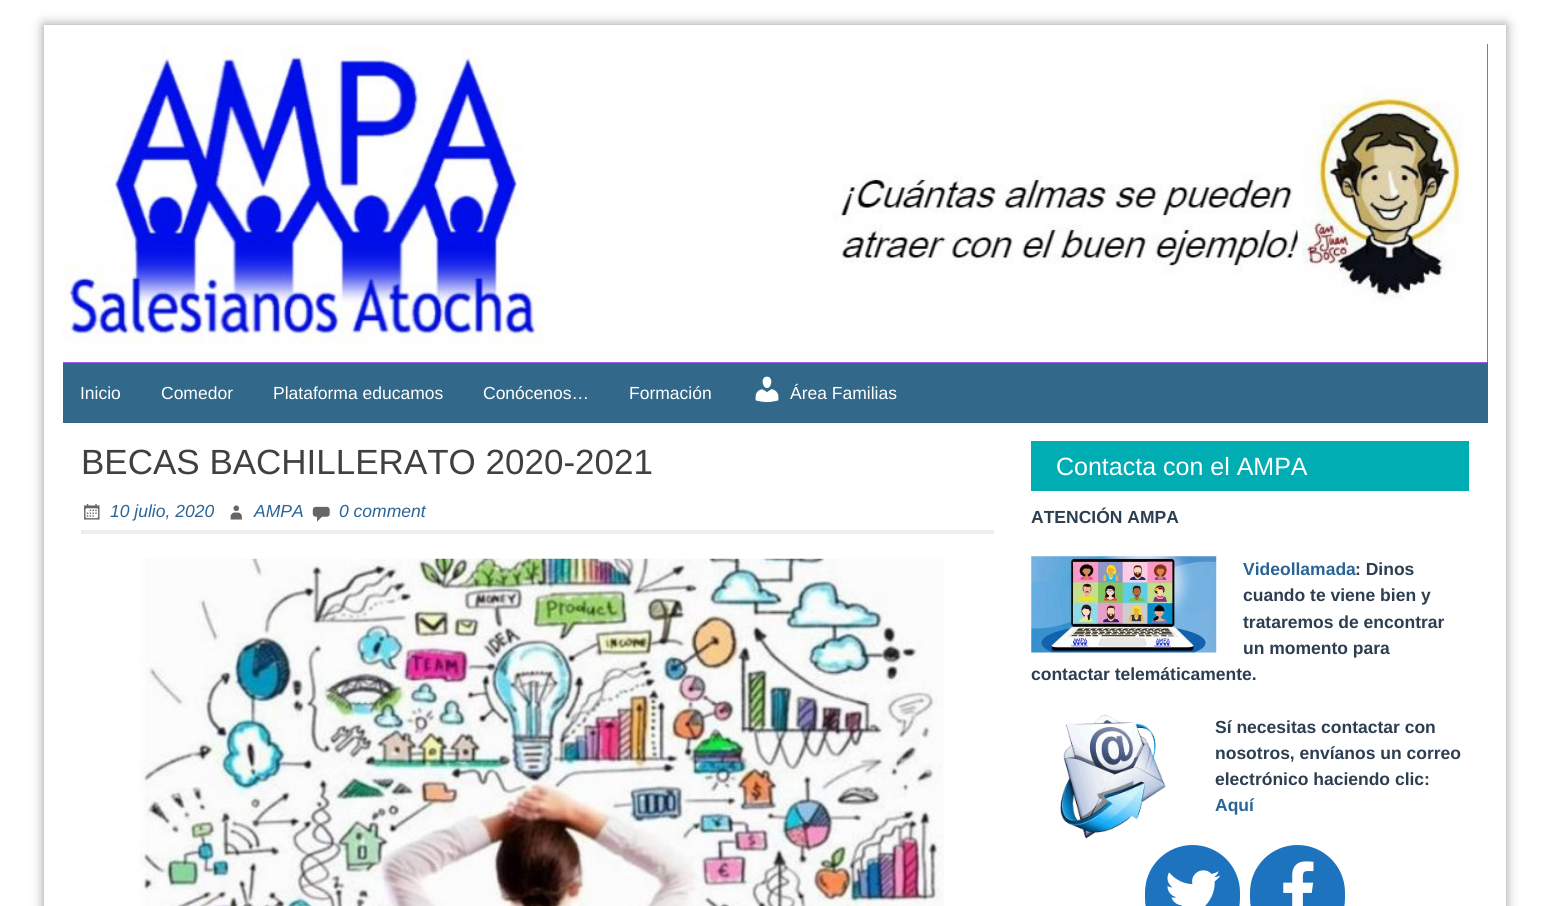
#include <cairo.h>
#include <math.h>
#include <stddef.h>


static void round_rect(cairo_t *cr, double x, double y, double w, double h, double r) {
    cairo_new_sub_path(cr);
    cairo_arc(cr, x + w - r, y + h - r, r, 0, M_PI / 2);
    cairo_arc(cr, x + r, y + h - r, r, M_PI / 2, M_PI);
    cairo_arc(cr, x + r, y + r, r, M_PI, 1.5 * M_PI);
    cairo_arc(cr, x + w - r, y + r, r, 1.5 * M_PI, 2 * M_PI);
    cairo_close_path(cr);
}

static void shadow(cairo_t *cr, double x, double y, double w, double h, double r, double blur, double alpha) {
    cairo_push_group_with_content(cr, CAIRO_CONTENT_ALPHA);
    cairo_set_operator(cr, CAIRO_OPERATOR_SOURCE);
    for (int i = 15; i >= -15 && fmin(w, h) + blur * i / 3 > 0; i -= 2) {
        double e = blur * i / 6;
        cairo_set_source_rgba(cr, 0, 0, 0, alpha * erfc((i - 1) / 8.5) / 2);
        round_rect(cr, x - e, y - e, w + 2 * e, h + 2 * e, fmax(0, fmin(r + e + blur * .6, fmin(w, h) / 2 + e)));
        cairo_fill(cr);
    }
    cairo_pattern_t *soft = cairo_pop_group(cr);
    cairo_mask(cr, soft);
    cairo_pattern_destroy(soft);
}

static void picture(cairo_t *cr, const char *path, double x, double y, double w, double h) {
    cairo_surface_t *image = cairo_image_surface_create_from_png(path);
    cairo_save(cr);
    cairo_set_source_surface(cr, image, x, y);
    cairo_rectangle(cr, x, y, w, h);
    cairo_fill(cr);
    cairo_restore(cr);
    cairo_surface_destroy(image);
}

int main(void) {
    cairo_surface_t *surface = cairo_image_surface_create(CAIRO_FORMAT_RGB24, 1549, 906);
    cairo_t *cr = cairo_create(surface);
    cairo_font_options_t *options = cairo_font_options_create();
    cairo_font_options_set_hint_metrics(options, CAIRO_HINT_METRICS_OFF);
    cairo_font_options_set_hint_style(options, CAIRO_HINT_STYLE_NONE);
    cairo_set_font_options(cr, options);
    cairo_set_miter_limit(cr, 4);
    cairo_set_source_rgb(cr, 1, 1, 1);
    cairo_paint(cr);
    cairo_save(cr);
    cairo_set_fill_rule(cr, CAIRO_FILL_RULE_EVEN_ODD);
    cairo_new_path(cr);
    cairo_move_to(cr, 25, 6);
    cairo_line_to(cr, 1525, 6);
    cairo_line_to(cr, 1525, 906);
    cairo_line_to(cr, 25, 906);
    cairo_close_path(cr);
    cairo_move_to(cr, 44, 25);
    cairo_line_to(cr, 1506, 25);
    cairo_line_to(cr, 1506, 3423);
    cairo_line_to(cr, 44, 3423);
    cairo_close_path(cr);
    cairo_clip(cr);
    cairo_set_source_rgb(cr, 0.6, 0.6, 0.6);
    shadow(cr, 44, 25, 1462, 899, 0, 6, 1);
    cairo_restore(cr);
    cairo_set_source_rgb(cr, 0.51, 0.141, 0.89);
    cairo_rectangle(cr, 63, 44, 1425, 319);
    cairo_fill(cr);
    picture(cr, "img1.png", 62, 44, 1426, 319);
    cairo_set_source_rgb(cr, 0.196, 0.412, 0.545);
    cairo_rectangle(cr, 63, 363, 1425, 60);
    cairo_fill(cr);
    cairo_select_font_face(cr, "Liberation Sans", CAIRO_FONT_SLANT_NORMAL, CAIRO_FONT_WEIGHT_NORMAL);
    cairo_set_font_size(cr, 17.5);
    cairo_set_source_rgb(cr, 1, 1, 1);
    cairo_move_to(cr, 80, 399);
    cairo_show_text(cr, "Inicio");
    cairo_move_to(cr, 161, 399);
    cairo_show_text(cr, "Comedor");
    cairo_move_to(cr, 273, 399);
    cairo_show_text(cr, "Plataforma educamos");
    cairo_move_to(cr, 483, 399);
    cairo_show_text(cr, "Conócenos…");
    cairo_move_to(cr, 629, 399);
    cairo_show_text(cr, "Formación");
    picture(cr, "img2.png", 755, 376, 24, 27);
    cairo_move_to(cr, 790, 399);
    cairo_show_text(cr, "Área Familias");
    cairo_set_source_rgb(cr, 0.933, 0.933, 0.933);
    cairo_rectangle(cr, 81, 530, 913, 4);
    cairo_fill(cr);
    cairo_set_font_size(cr, 35);
    cairo_set_source_rgb(cr, 0.251, 0.251, 0.251);
    cairo_move_to(cr, 81, 474);
    cairo_show_text(cr, "BECAS BACHILLERATO 2020-2021");
    picture(cr, "img3.png", 84, 504, 16, 16);
    cairo_select_font_face(cr, "Liberation Sans", CAIRO_FONT_SLANT_ITALIC, CAIRO_FONT_WEIGHT_NORMAL);
    cairo_set_font_size(cr, 17.5);
    cairo_set_source_rgb(cr, 0.165, 0.392, 0.588);
    cairo_move_to(cr, 110, 517);
    cairo_show_text(cr, "10 julio, 2020");
    picture(cr, "img4.png", 230, 505, 12, 15);
    cairo_move_to(cr, 254, 517);
    cairo_show_text(cr, "AMPA");
    picture(cr, "img5.png", 312, 506, 18, 16);
    cairo_move_to(cr, 339, 517);
    cairo_show_text(cr, "0 comment");
    picture(cr, "img6.png", 140, 558, 804, 348);
    cairo_set_source_rgb(cr, 0, 0.678, 0.702);
    cairo_rectangle(cr, 1031, 441, 438, 50);
    cairo_fill(cr);
    cairo_select_font_face(cr, "Liberation Sans", CAIRO_FONT_SLANT_NORMAL, CAIRO_FONT_WEIGHT_NORMAL);
    cairo_set_font_size(cr, 25);
    cairo_set_source_rgb(cr, 1, 1, 1);
    cairo_move_to(cr, 1056, 475);
    cairo_show_text(cr, "Contacta con el AMPA");
    cairo_select_font_face(cr, "Liberation Sans", CAIRO_FONT_SLANT_NORMAL, CAIRO_FONT_WEIGHT_BOLD);
    cairo_set_font_size(cr, 17.5);
    cairo_set_source_rgb(cr, 0.173, 0.243, 0.314);
    cairo_move_to(cr, 1031, 523);
    cairo_show_text(cr, "ATENCIÓN AMPA");
    picture(cr, "img7.png", 1031, 556, 186, 97);
    cairo_set_source_rgb(cr, 0.165, 0.392, 0.588);
    cairo_move_to(cr, 1243, 575);
    cairo_show_text(cr, "Videollamada");
    cairo_set_source_rgb(cr, 0.173, 0.243, 0.314);
    cairo_move_to(cr, 1355, 575);
    cairo_show_text(cr, ": Dinos");
    cairo_move_to(cr, 1243, 601);
    cairo_show_text(cr, "cuando te viene bien y");
    cairo_move_to(cr, 1243, 628);
    cairo_show_text(cr, "trataremos de encontrar");
    cairo_move_to(cr, 1243, 654);
    cairo_show_text(cr, "un momento para");
    cairo_move_to(cr, 1031, 680);
    cairo_show_text(cr, "contactar telemáticamente.");
    picture(cr, "img8.png", 1060, 714, 106, 125);
    cairo_move_to(cr, 1215, 733);
    cairo_show_text(cr, "Sí necesitas contactar con");
    cairo_move_to(cr, 1215, 759);
    cairo_show_text(cr, "nosotros, envíanos un correo");
    cairo_move_to(cr, 1215, 785);
    cairo_show_text(cr, "electrónico haciendo clic:");
    cairo_set_source_rgb(cr, 0.165, 0.392, 0.588);
    cairo_move_to(cr, 1215, 811);
    cairo_show_text(cr, "Aquí");
    cairo_set_source_rgb(cr, 0.118, 0.451, 0.745);
    round_rect(cr, 1145, 845, 95, 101, 47.5);
    cairo_fill(cr);
    picture(cr, "img9.png", 1167, 870, 54, 36);
    round_rect(cr, 1250, 845, 95, 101, 47.5);
    cairo_fill(cr);
    picture(cr, "img10.png", 1283, 861, 31, 45);
    cairo_surface_write_to_png(surface, "page.png");
    cairo_font_options_destroy(options);
    cairo_destroy(cr);
    cairo_surface_destroy(surface);
    return 0;
}
